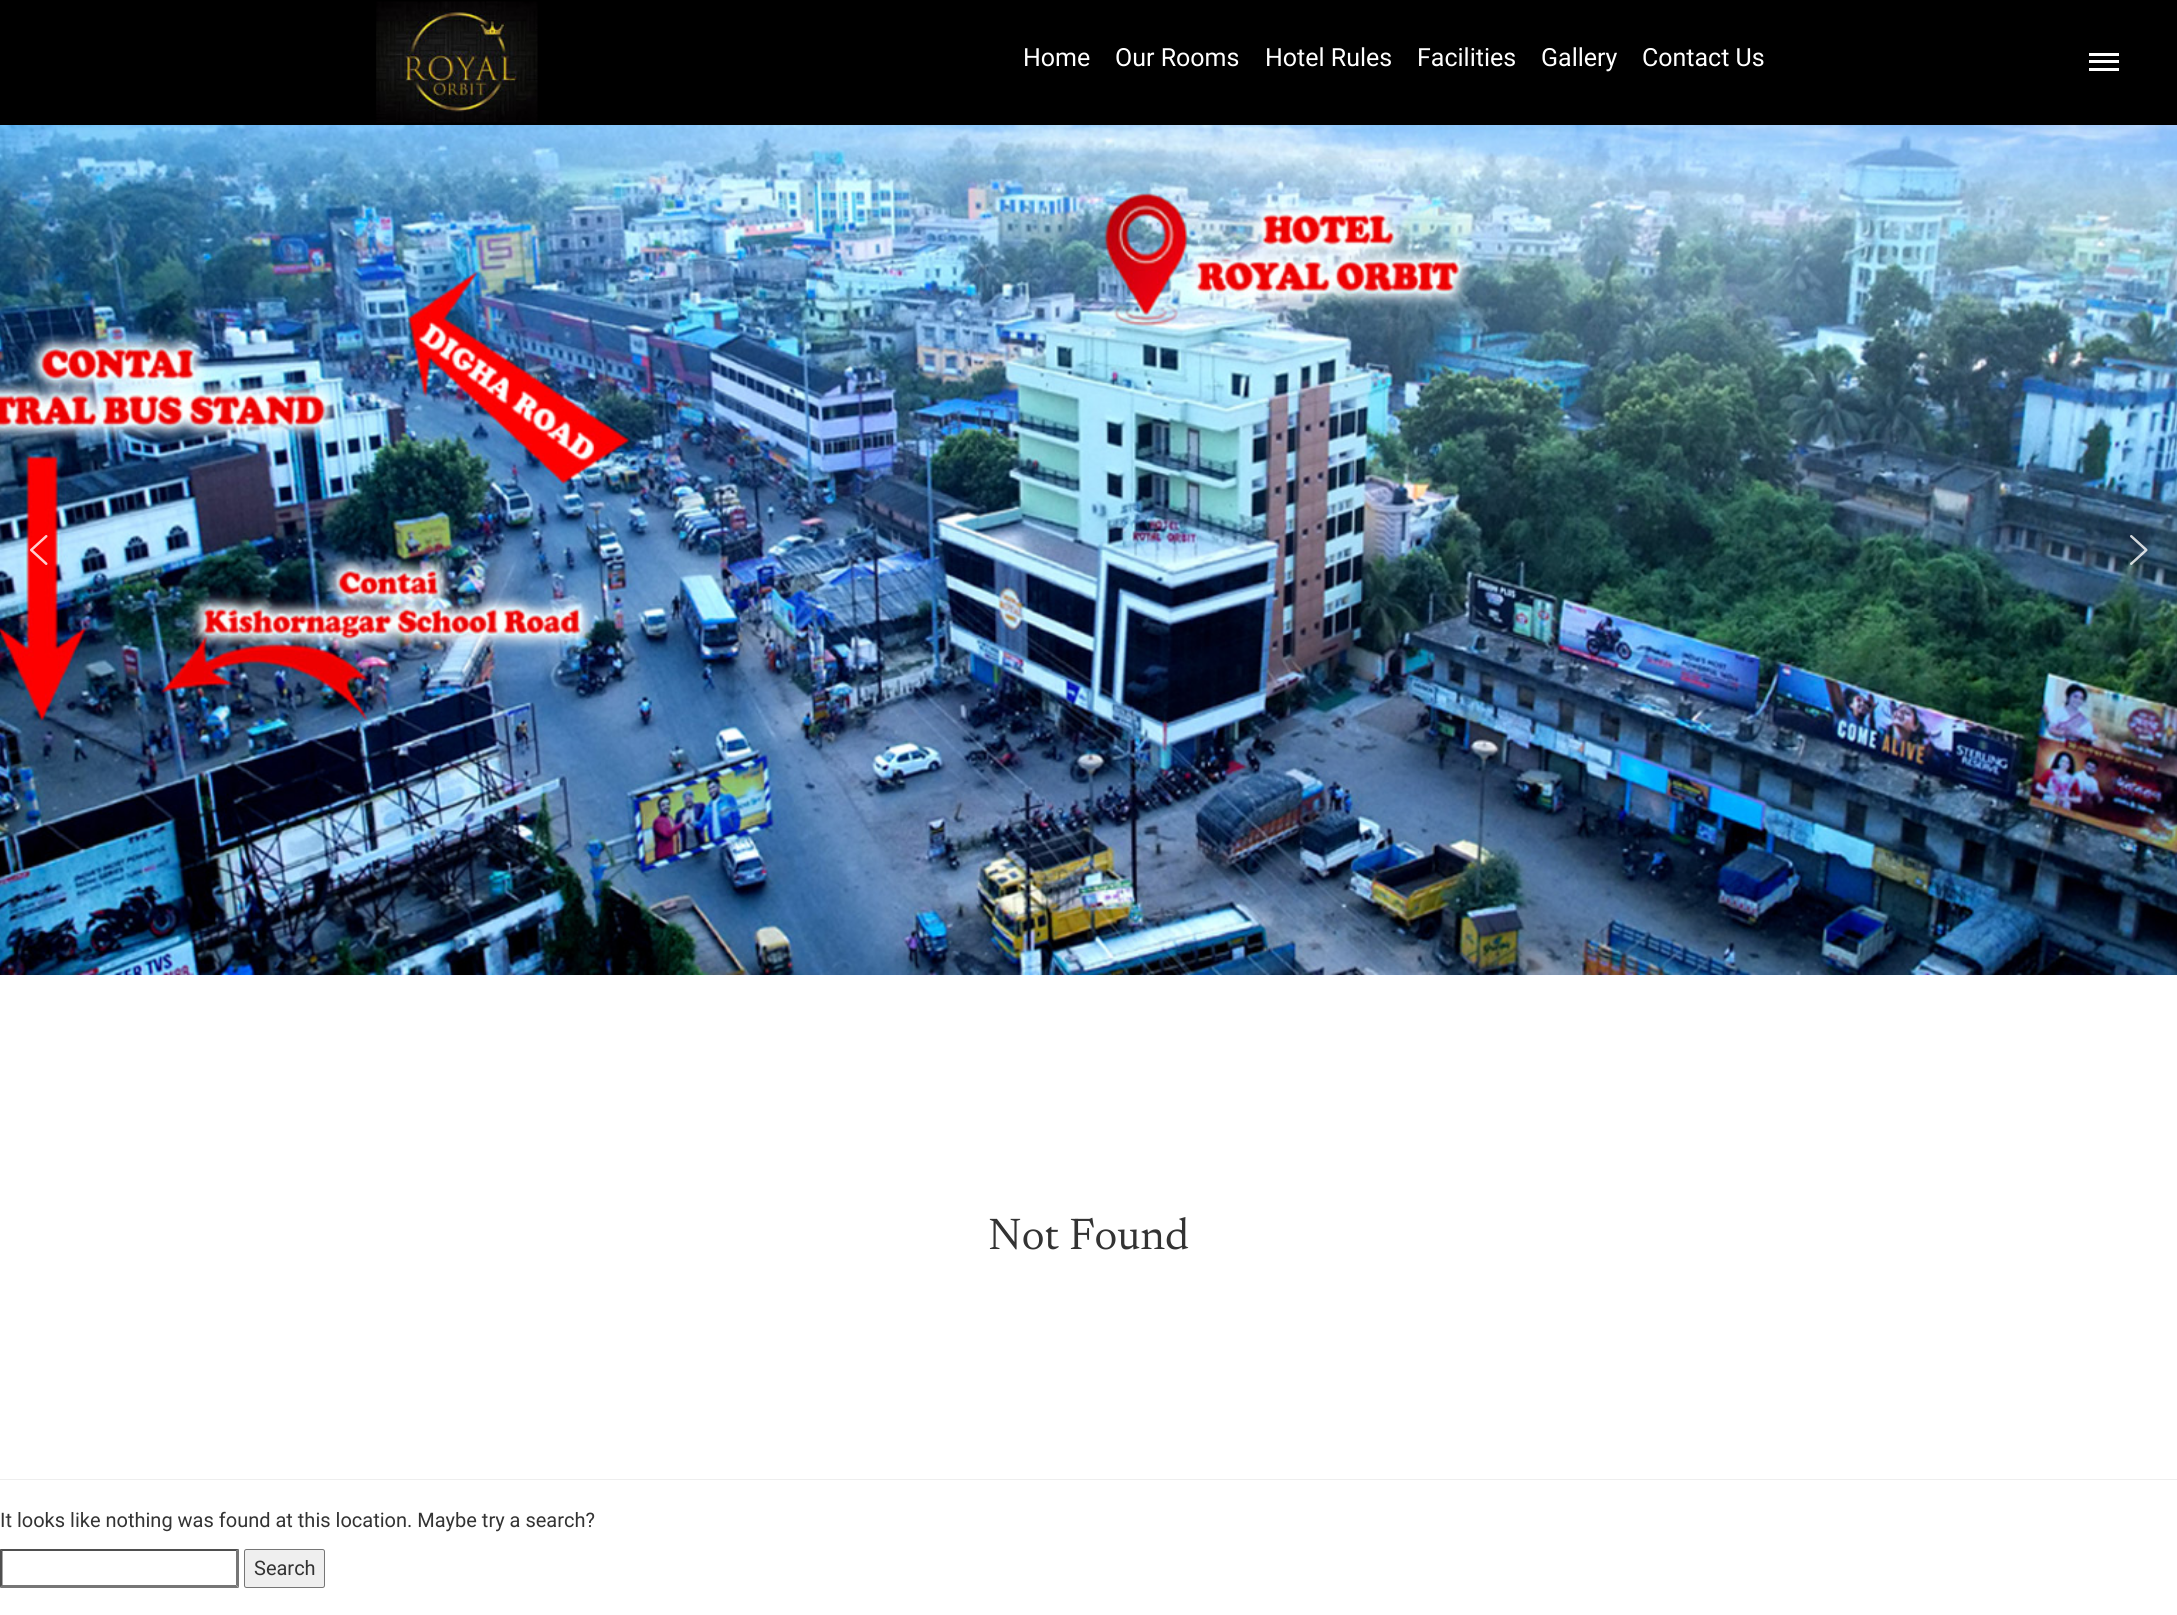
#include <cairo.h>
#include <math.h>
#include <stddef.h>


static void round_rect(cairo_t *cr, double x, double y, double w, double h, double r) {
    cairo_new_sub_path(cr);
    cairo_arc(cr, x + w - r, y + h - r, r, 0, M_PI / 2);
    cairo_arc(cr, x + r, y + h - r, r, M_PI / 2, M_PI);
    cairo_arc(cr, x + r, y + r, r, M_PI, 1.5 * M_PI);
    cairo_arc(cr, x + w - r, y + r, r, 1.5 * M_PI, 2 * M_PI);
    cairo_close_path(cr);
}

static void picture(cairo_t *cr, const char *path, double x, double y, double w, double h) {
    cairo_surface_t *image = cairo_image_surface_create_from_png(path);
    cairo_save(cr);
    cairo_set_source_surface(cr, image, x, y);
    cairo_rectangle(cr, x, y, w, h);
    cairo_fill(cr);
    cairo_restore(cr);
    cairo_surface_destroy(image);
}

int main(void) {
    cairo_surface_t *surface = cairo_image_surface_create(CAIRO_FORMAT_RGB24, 2177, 1615);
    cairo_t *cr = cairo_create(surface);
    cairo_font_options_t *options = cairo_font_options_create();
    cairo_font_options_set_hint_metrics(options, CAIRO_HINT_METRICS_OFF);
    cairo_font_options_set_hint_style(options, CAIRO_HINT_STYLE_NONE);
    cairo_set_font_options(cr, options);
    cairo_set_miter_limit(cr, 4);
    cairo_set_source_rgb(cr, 1, 1, 1);
    cairo_paint(cr);
    cairo_set_source_rgb(cr, 0, 0, 0);
    cairo_rectangle(cr, 0, 0, 2177, 125);
    cairo_fill(cr);
    picture(cr, "img1.png", 376, 1, 162, 122);
    cairo_select_font_face(cr, "Roboto", CAIRO_FONT_SLANT_NORMAL, CAIRO_FONT_WEIGHT_NORMAL);
    cairo_set_font_size(cr, 25);
    cairo_set_source_rgb(cr, 1, 1, 1);
    cairo_move_to(cr, 1023, 66);
    cairo_show_text(cr, "Home");
    cairo_move_to(cr, 1115, 66);
    cairo_show_text(cr, "Our Rooms");
    cairo_move_to(cr, 1265, 66);
    cairo_show_text(cr, "Hotel Rules");
    cairo_move_to(cr, 1417, 66);
    cairo_show_text(cr, "Facilities");
    cairo_move_to(cr, 1541, 66);
    cairo_show_text(cr, "Gallery");
    cairo_move_to(cr, 1642, 66);
    cairo_show_text(cr, "Contact Us");
    cairo_rectangle(cr, 2089, 53, 30, 3);
    cairo_fill(cr);
    cairo_rectangle(cr, 2089, 60, 30, 3);
    cairo_fill(cr);
    cairo_rectangle(cr, 2089, 68, 30, 3);
    cairo_fill(cr);
    picture(cr, "img2.png", 0, 125, 2177, 850);
    picture(cr, "img3.png", 30, 535, 18, 30);
    picture(cr, "img4.png", 2130, 535, 18, 30);
    cairo_set_source_rgb(cr, 0.933, 0.933, 0.933);
    cairo_rectangle(cr, 0, 1479, 2177, 1);
    cairo_fill(cr);
    cairo_select_font_face(cr, "Newsreader", CAIRO_FONT_SLANT_NORMAL, CAIRO_FONT_WEIGHT_NORMAL);
    cairo_set_font_size(cr, 45);
    cairo_set_source_rgb(cr, 0.2, 0.2, 0.2);
    cairo_move_to(cr, 988, 1249);
    cairo_show_text(cr, "Not Found");
    cairo_select_font_face(cr, "Roboto", CAIRO_FONT_SLANT_NORMAL, CAIRO_FONT_WEIGHT_NORMAL);
    cairo_set_font_size(cr, 20);
    cairo_move_to(cr, 0, 1527);
    cairo_show_text(cr, "It looks like nothing was found at this location. Maybe try a search?");
    cairo_set_source_rgb(cr, 0.31, 0.31, 0.31);
    cairo_new_path(cr);
    cairo_move_to(cr, 0, 1549);
    cairo_line_to(cr, 239, 1549);
    cairo_line_to(cr, 236, 1551);
    cairo_line_to(cr, 2, 1551);
    cairo_close_path(cr);
    cairo_fill(cr);
    cairo_set_source_rgb(cr, 0.463, 0.463, 0.463);
    cairo_new_path(cr);
    cairo_move_to(cr, 239, 1549);
    cairo_line_to(cr, 239, 1587.5);
    cairo_line_to(cr, 236, 1585);
    cairo_line_to(cr, 236, 1551);
    cairo_close_path(cr);
    cairo_fill(cr);
    cairo_new_path(cr);
    cairo_move_to(cr, 239, 1588);
    cairo_line_to(cr, 0, 1588);
    cairo_line_to(cr, 2, 1585);
    cairo_line_to(cr, 236, 1585);
    cairo_close_path(cr);
    cairo_fill(cr);
    cairo_set_source_rgb(cr, 0.31, 0.31, 0.31);
    cairo_new_path(cr);
    cairo_move_to(cr, 0, 1587.5);
    cairo_line_to(cr, 0, 1549);
    cairo_line_to(cr, 2.5, 1551);
    cairo_line_to(cr, 2.5, 1585);
    cairo_close_path(cr);
    cairo_fill(cr);
    cairo_set_source_rgb(cr, 0.937, 0.937, 0.937);
    round_rect(cr, 244.5, 1549.5, 80, 38, 2);
    cairo_fill_preserve(cr);
    cairo_set_source_rgb(cr, 0.463, 0.463, 0.463);
    cairo_set_line_width(cr, 1);
    cairo_stroke(cr);
    cairo_set_source_rgb(cr, 0.2, 0.2, 0.2);
    cairo_move_to(cr, 254, 1575);
    cairo_show_text(cr, "Search");
    cairo_surface_write_to_png(surface, "page.png");
    cairo_font_options_destroy(options);
    cairo_destroy(cr);
    cairo_surface_destroy(surface);
    return 0;
}
